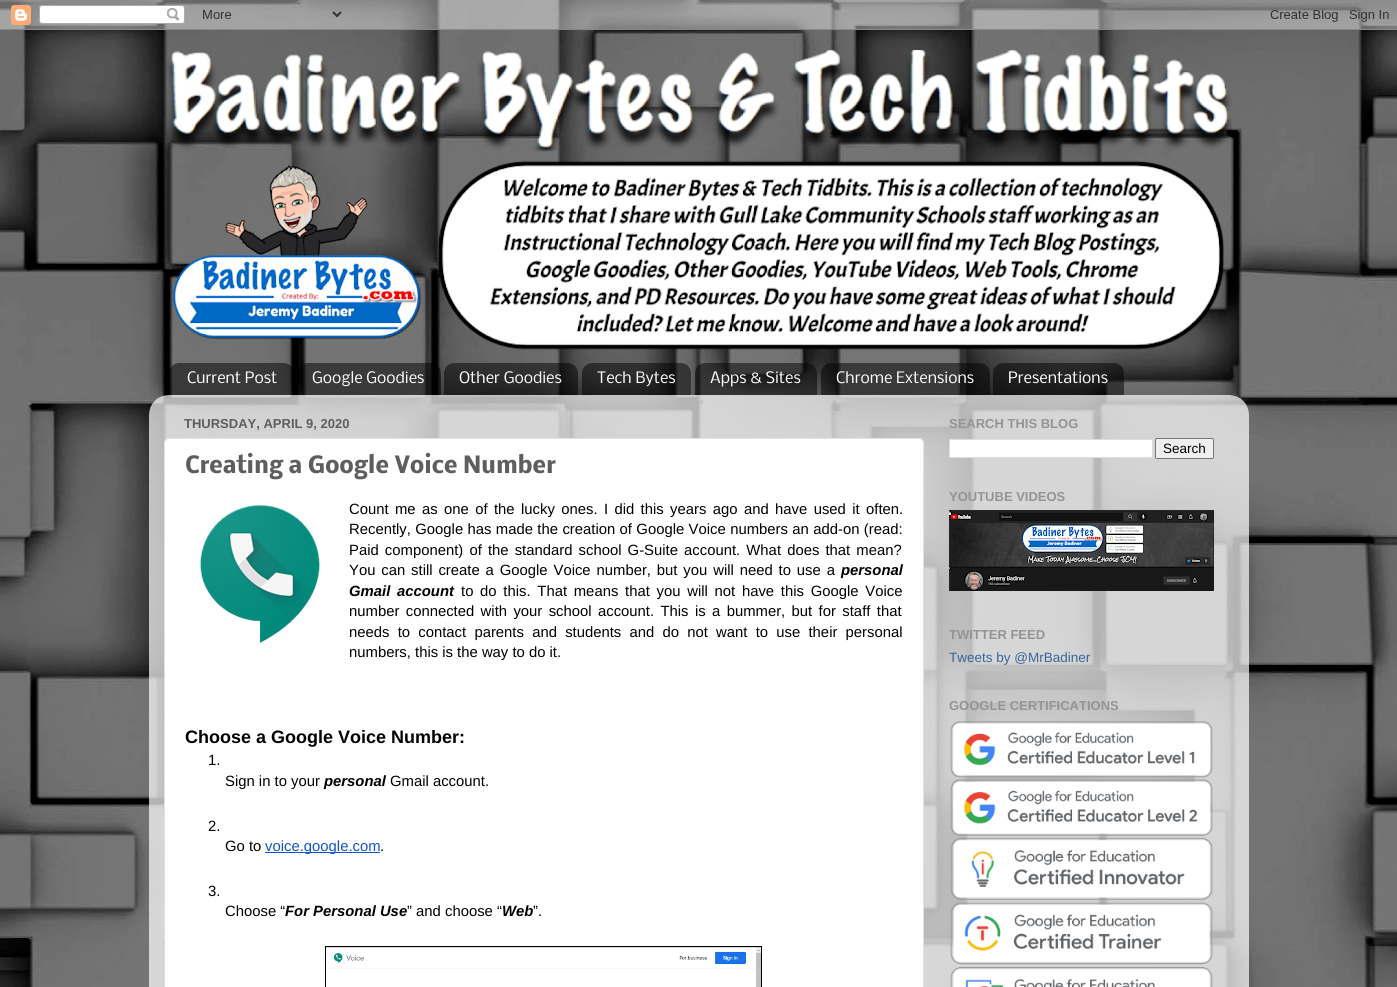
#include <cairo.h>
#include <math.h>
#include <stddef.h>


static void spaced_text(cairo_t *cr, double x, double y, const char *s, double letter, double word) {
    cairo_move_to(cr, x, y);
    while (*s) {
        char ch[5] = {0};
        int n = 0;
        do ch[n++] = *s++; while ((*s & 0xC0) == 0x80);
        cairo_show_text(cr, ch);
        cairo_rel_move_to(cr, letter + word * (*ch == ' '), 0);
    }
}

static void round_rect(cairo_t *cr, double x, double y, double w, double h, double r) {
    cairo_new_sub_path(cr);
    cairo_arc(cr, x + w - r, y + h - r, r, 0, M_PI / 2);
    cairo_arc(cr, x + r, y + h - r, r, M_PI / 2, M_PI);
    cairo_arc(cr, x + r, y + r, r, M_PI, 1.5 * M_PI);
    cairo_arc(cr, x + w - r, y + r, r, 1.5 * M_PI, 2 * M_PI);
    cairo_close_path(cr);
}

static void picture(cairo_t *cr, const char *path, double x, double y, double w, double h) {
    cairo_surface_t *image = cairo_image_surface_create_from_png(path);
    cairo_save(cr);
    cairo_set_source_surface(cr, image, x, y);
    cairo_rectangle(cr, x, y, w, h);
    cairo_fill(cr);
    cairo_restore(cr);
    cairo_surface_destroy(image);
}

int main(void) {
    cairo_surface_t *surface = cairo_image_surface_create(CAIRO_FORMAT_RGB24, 1397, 987);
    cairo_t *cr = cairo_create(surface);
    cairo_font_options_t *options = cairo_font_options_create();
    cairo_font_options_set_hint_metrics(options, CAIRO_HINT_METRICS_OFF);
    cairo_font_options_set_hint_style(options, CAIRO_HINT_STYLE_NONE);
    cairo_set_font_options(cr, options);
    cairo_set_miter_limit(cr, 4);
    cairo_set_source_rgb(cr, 1, 1, 1);
    cairo_paint(cr);
    picture(cr, "img1.png", 0, 0, 1397, 987);
    picture(cr, "img2.png", 0, 0, 1397, 30);
    picture(cr, "img3.png", 167, 50, 1065, 300);
    picture(cr, "img4.png", 169, 363, 124, 32);
    cairo_select_font_face(cr, "Nobile", CAIRO_FONT_SLANT_NORMAL, CAIRO_FONT_WEIGHT_NORMAL);
    cairo_set_font_size(cr, 15);
    cairo_set_source_rgb(cr, 1, 1, 1);
    cairo_move_to(cr, 187, 383);
    cairo_show_text(cr, "Current Post");
    picture(cr, "img5.png", 298, 363, 143, 32);
    cairo_move_to(cr, 312, 383);
    cairo_show_text(cr, "Google Goodies");
    picture(cr, "img6.png", 444, 363, 134, 32);
    cairo_move_to(cr, 459, 383);
    cairo_show_text(cr, "Other Goodies");
    picture(cr, "img7.png", 582, 363, 109, 32);
    cairo_move_to(cr, 597, 383);
    cairo_show_text(cr, "Tech Bytes");
    picture(cr, "img8.png", 695, 363, 122, 32);
    cairo_move_to(cr, 710, 383);
    cairo_show_text(cr, "Apps & Sites");
    picture(cr, "img9.png", 821, 363, 169, 32);
    cairo_move_to(cr, 836, 383);
    cairo_show_text(cr, "Chrome Extensions");
    picture(cr, "img10.png", 993, 363, 131, 32);
    cairo_move_to(cr, 1008, 383);
    cairo_show_text(cr, "Presentations");
    picture(cr, "img11.png", 149, 395, 1100, 592);
    cairo_select_font_face(cr, "Liberation Sans", CAIRO_FONT_SLANT_NORMAL, CAIRO_FONT_WEIGHT_BOLD);
    cairo_set_font_size(cr, 13);
    cairo_set_source_rgb(cr, 0.369, 0.369, 0.369);
    cairo_move_to(cr, 184, 428);
    cairo_show_text(cr, "THURSDAY, APRIL 9, 2020");
    cairo_set_source_rgb(cr, 1, 1, 1);
    round_rect(cr, 164.5, 438.5, 759, 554, 4.5);
    cairo_fill_preserve(cr);
    cairo_set_source_rgb(cr, 0.886, 0.886, 0.886);
    cairo_set_line_width(cr, 1);
    cairo_stroke(cr);
    cairo_select_font_face(cr, "Nobile", CAIRO_FONT_SLANT_NORMAL, CAIRO_FONT_WEIGHT_BOLD);
    cairo_set_font_size(cr, 22);
    cairo_set_source_rgb(cr, 0.369, 0.369, 0.369);
    cairo_move_to(cr, 185, 473);
    cairo_show_text(cr, "Creating a Google Voice Number");
    picture(cr, "img12.png", 200, 505, 120, 138);
    cairo_select_font_face(cr, "Liberation Sans", CAIRO_FONT_SLANT_NORMAL, CAIRO_FONT_WEIGHT_NORMAL);
    cairo_set_font_size(cr, 14.85);
    cairo_set_source_rgb(cr, 0, 0, 0);
    spaced_text(cr, 349, 514, "Count me as one of the lucky ones. I did this years ago and have used it often.", 0, 2.25);
    spaced_text(cr, 349, 534, "Recently, Google has made the creation of Google Voice numbers an add-on (read:", 0, 0.25);
    spaced_text(cr, 349, 555, "Paid component) of the standard school G-Suite account. What does that mean?", 0, 2);
    spaced_text(cr, 349, 575, "You can still create a Google Voice number, but you will need to use a", 0, 1.75);
    cairo_select_font_face(cr, "Liberation Sans", CAIRO_FONT_SLANT_ITALIC, CAIRO_FONT_WEIGHT_BOLD);
    cairo_move_to(cr, 841, 575);
    cairo_show_text(cr, "personal");
    spaced_text(cr, 349, 596, "Gmail account", 0, 2.6);
    cairo_select_font_face(cr, "Liberation Sans", CAIRO_FONT_SLANT_NORMAL, CAIRO_FONT_WEIGHT_NORMAL);
    spaced_text(cr, 461, 596, "to do this. That means that you will not have this Google Voice", 0, 2.6);
    spaced_text(cr, 349, 616, "number connected with your school account. This is a bummer, but for staff that", 0, 2.25);
    spaced_text(cr, 349, 637, "needs to contact parents and students and do not want to use their personal", 0, 4.1);
    cairo_move_to(cr, 349, 657);
    cairo_show_text(cr, "numbers, this is the way to do it.");
    cairo_select_font_face(cr, "Liberation Sans", CAIRO_FONT_SLANT_NORMAL, CAIRO_FONT_WEIGHT_BOLD);
    cairo_set_font_size(cr, 18);
    cairo_move_to(cr, 185, 743);
    cairo_show_text(cr, "Choose a Google Voice Number:");
    cairo_select_font_face(cr, "Liberation Sans", CAIRO_FONT_SLANT_NORMAL, CAIRO_FONT_WEIGHT_NORMAL);
    cairo_set_font_size(cr, 14.85);
    cairo_move_to(cr, 208, 765);
    cairo_show_text(cr, "1.");
    cairo_move_to(cr, 225, 786);
    cairo_show_text(cr, "Sign in to your");
    cairo_select_font_face(cr, "Liberation Sans", CAIRO_FONT_SLANT_ITALIC, CAIRO_FONT_WEIGHT_BOLD);
    cairo_move_to(cr, 324, 786);
    cairo_show_text(cr, "personal");
    cairo_select_font_face(cr, "Liberation Sans", CAIRO_FONT_SLANT_NORMAL, CAIRO_FONT_WEIGHT_NORMAL);
    cairo_move_to(cr, 390, 786);
    cairo_show_text(cr, "Gmail account.");
    cairo_move_to(cr, 208, 831);
    cairo_show_text(cr, "2.");
    cairo_move_to(cr, 225, 851);
    cairo_show_text(cr, "Go to");
    cairo_set_source_rgb(cr, 0.067, 0.333, 0.8);
    cairo_rectangle(cr, 265, 852, 115, 1);
    cairo_fill(cr);
    cairo_move_to(cr, 265, 851);
    cairo_show_text(cr, "voice.google.com");
    cairo_set_source_rgb(cr, 0, 0, 0);
    cairo_move_to(cr, 380, 851);
    cairo_show_text(cr, ".");
    cairo_move_to(cr, 208, 896);
    cairo_show_text(cr, "3.");
    cairo_move_to(cr, 225, 916);
    cairo_show_text(cr, "Choose “");
    cairo_select_font_face(cr, "Liberation Sans", CAIRO_FONT_SLANT_ITALIC, CAIRO_FONT_WEIGHT_BOLD);
    cairo_move_to(cr, 285, 916);
    cairo_show_text(cr, "For Personal Use");
    cairo_select_font_face(cr, "Liberation Sans", CAIRO_FONT_SLANT_NORMAL, CAIRO_FONT_WEIGHT_NORMAL);
    cairo_move_to(cr, 407, 916);
    cairo_show_text(cr, "” and choose “");
    cairo_select_font_face(cr, "Liberation Sans", CAIRO_FONT_SLANT_ITALIC, CAIRO_FONT_WEIGHT_BOLD);
    cairo_move_to(cr, 502, 916);
    cairo_show_text(cr, "Web");
    cairo_select_font_face(cr, "Liberation Sans", CAIRO_FONT_SLANT_NORMAL, CAIRO_FONT_WEIGHT_NORMAL);
    cairo_move_to(cr, 533, 916);
    cairo_show_text(cr, "”.");
    cairo_rectangle(cr, 325.5, 946.5, 436, 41);
    cairo_stroke(cr);
    picture(cr, "img13.png", 326, 947, 435, 40);
    cairo_select_font_face(cr, "Liberation Sans", CAIRO_FONT_SLANT_NORMAL, CAIRO_FONT_WEIGHT_BOLD);
    cairo_set_font_size(cr, 13);
    cairo_set_source_rgb(cr, 0.58, 0.58, 0.58);
    cairo_move_to(cr, 949, 428);
    cairo_show_text(cr, "SEARCH THIS BLOG");
    cairo_set_source_rgb(cr, 1, 1, 1);
    cairo_rectangle(cr, 949.5, 439.5, 203, 18);
    cairo_fill_preserve(cr);
    cairo_set_source_rgb(cr, 0.867, 0.867, 0.867);
    cairo_stroke(cr);
    cairo_set_source_rgb(cr, 0.937, 0.937, 0.937);
    round_rect(cr, 1155.5, 438.5, 58, 20, 1.5);
    cairo_fill_preserve(cr);
    cairo_set_source_rgb(cr, 0.463, 0.463, 0.463);
    cairo_stroke(cr);
    cairo_select_font_face(cr, "Liberation Sans", CAIRO_FONT_SLANT_NORMAL, CAIRO_FONT_WEIGHT_NORMAL);
    cairo_set_font_size(cr, 13.5);
    cairo_set_source_rgb(cr, 0, 0, 0);
    cairo_move_to(cr, 1163, 453);
    cairo_show_text(cr, "Search");
    cairo_select_font_face(cr, "Liberation Sans", CAIRO_FONT_SLANT_NORMAL, CAIRO_FONT_WEIGHT_BOLD);
    cairo_set_font_size(cr, 13);
    cairo_set_source_rgb(cr, 0.58, 0.58, 0.58);
    cairo_move_to(cr, 949, 501);
    cairo_show_text(cr, "YOUTUBE VIDEOS");
    picture(cr, "img14.png", 949, 510, 265, 81);
    cairo_move_to(cr, 949, 639);
    cairo_show_text(cr, "TWITTER FEED");
    cairo_select_font_face(cr, "Liberation Sans", CAIRO_FONT_SLANT_NORMAL, CAIRO_FONT_WEIGHT_NORMAL);
    cairo_set_font_size(cr, 13.5);
    cairo_set_source_rgb(cr, 0.2, 0.4, 0.6);
    cairo_move_to(cr, 949, 662);
    cairo_show_text(cr, "Tweets by @MrBadiner");
    cairo_select_font_face(cr, "Liberation Sans", CAIRO_FONT_SLANT_NORMAL, CAIRO_FONT_WEIGHT_BOLD);
    cairo_set_font_size(cr, 13);
    cairo_set_source_rgb(cr, 0.58, 0.58, 0.58);
    cairo_move_to(cr, 949, 710);
    cairo_show_text(cr, "GOOGLE CERTIFICATIONS");
    picture(cr, "img15.png", 950, 721, 263, 266);
    cairo_surface_write_to_png(surface, "page.png");
    cairo_font_options_destroy(options);
    cairo_destroy(cr);
    cairo_surface_destroy(surface);
    return 0;
}
